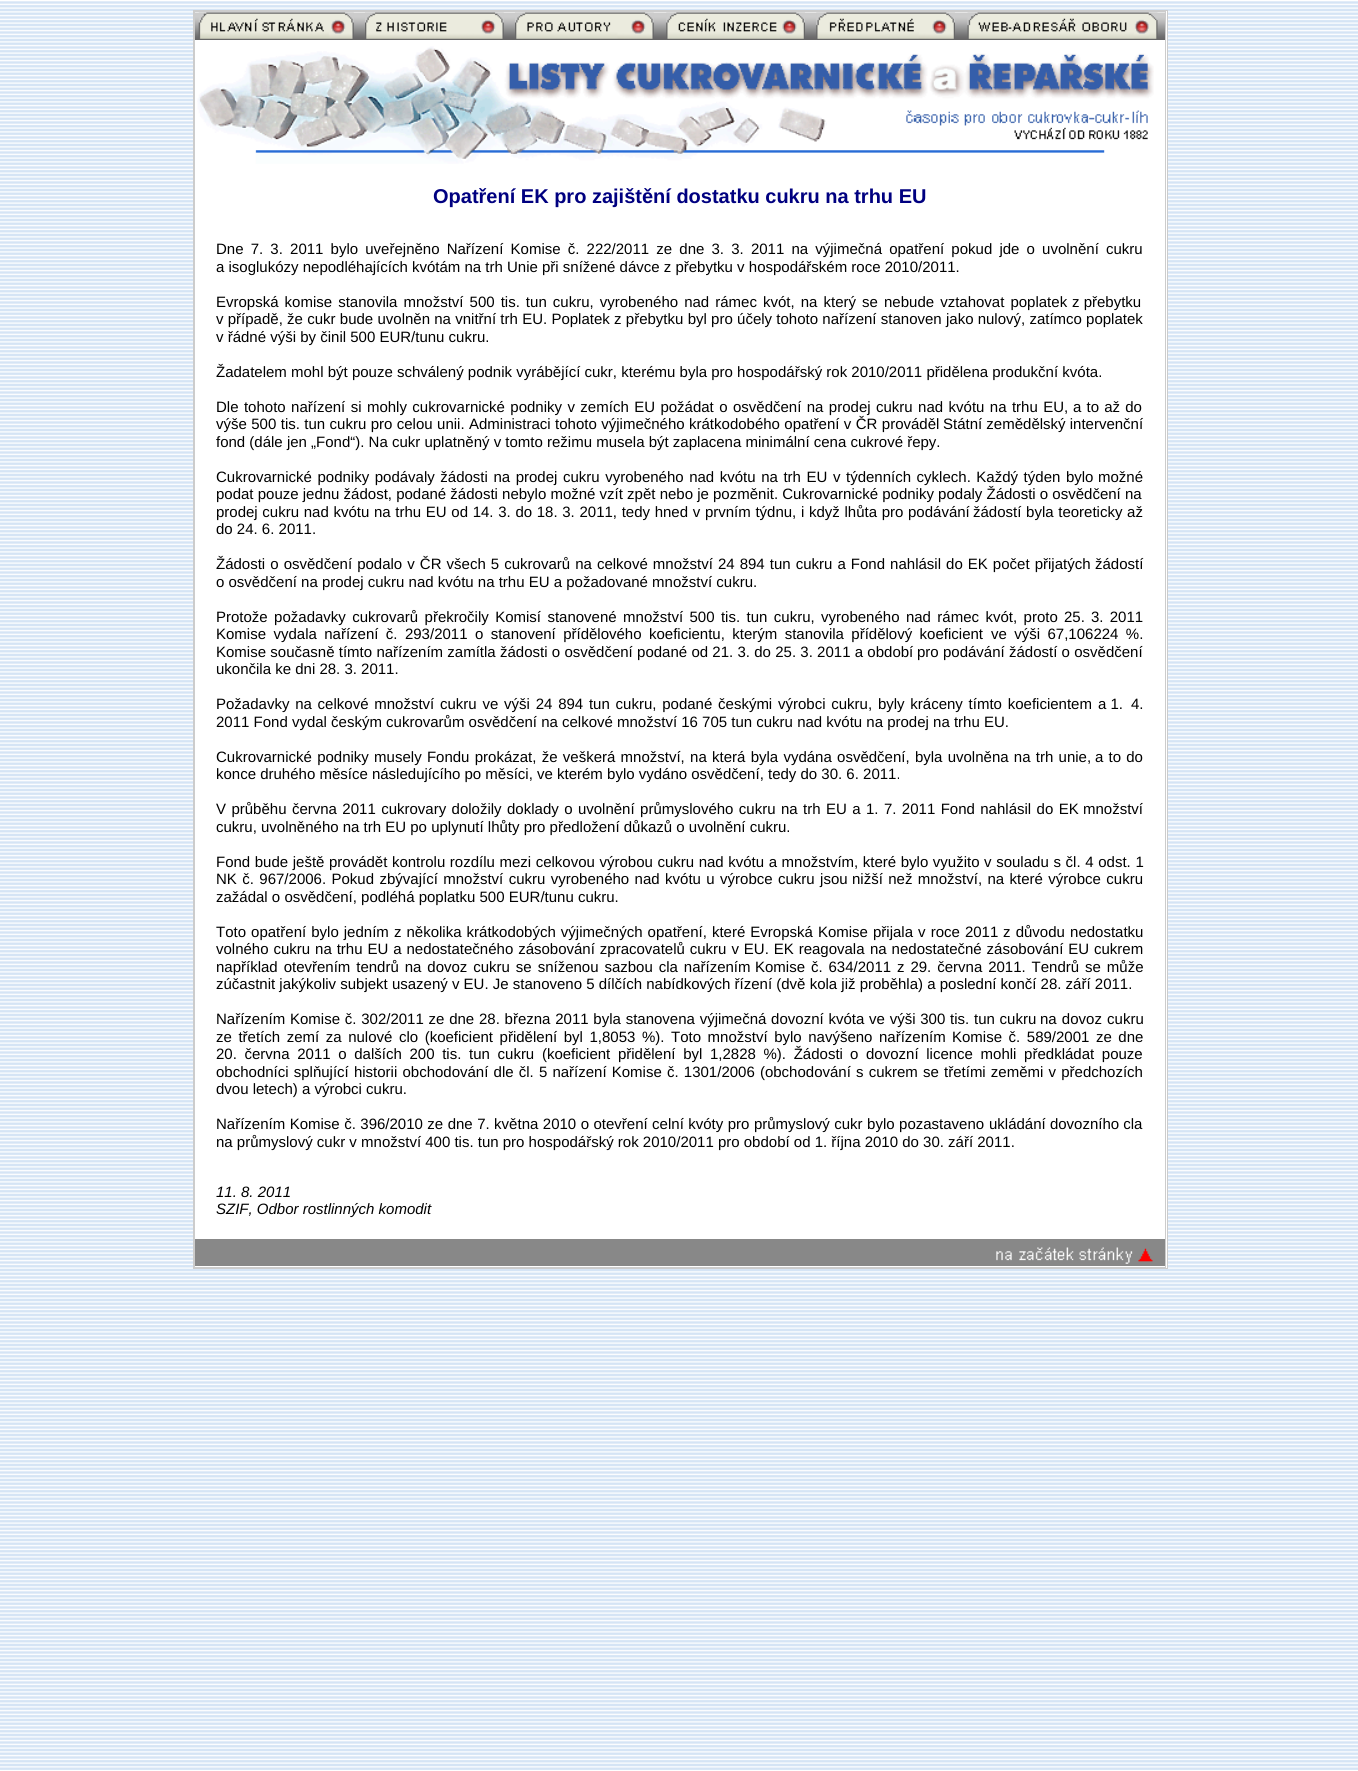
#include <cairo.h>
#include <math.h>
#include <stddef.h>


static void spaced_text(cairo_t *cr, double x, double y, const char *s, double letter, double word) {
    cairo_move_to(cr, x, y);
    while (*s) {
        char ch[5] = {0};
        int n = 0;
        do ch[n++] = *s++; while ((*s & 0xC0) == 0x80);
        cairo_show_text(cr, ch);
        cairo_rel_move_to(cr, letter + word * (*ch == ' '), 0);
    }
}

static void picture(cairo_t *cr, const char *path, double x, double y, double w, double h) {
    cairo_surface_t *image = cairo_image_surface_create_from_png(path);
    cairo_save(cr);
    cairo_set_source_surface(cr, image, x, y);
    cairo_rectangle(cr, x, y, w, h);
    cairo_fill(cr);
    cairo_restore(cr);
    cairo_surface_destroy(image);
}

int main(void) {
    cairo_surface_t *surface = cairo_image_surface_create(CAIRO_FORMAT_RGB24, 1358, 1771);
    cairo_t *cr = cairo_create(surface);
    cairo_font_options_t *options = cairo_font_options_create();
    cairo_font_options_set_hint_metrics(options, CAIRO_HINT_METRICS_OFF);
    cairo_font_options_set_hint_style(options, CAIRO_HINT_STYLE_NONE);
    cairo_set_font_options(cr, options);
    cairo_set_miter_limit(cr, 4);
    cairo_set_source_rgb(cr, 1, 1, 1);
    cairo_paint(cr);
    picture(cr, "img1.png", 0, 1, 1358, 1769);
    cairo_set_source_rgb(cr, 1, 1, 1);
    cairo_rectangle(cr, 195, 11, 972, 1257);
    cairo_fill(cr);
    cairo_rectangle(cr, 193.5, 10.5, 974, 1258);
    cairo_set_source_rgb(cr, 0.8, 0.8, 0.8);
    cairo_set_line_width(cr, 1);
    cairo_stroke(cr);
    cairo_rectangle(cr, 194.5, 11.5, 971, 1256);
    cairo_stroke(cr);
    picture(cr, "img2.png", 195, 12, 970, 28);
    picture(cr, "img3.png", 198, 12, 156, 27);
    picture(cr, "img4.png", 365, 12, 139, 27);
    picture(cr, "img5.png", 515, 12, 139, 27);
    picture(cr, "img6.png", 666, 12, 139, 27);
    picture(cr, "img7.png", 816, 12, 139, 27);
    picture(cr, "img8.png", 967, 12, 191, 27);
    picture(cr, "img9.png", 197, 46, 957, 118);
    cairo_select_font_face(cr, "Liberation Sans", CAIRO_FONT_SLANT_NORMAL, CAIRO_FONT_WEIGHT_BOLD);
    cairo_set_font_size(cr, 20);
    cairo_set_source_rgb(cr, 0, 0, 0.502);
    cairo_move_to(cr, 433, 203);
    cairo_show_text(cr, "Opatření EK pro zajištění dostatku cukru na trhu EU");
    cairo_select_font_face(cr, "Liberation Sans", CAIRO_FONT_SLANT_NORMAL, CAIRO_FONT_WEIGHT_NORMAL);
    cairo_set_font_size(cr, 15);
    cairo_set_source_rgb(cr, 0, 0, 0);
    spaced_text(cr, 216, 254, "Dne 7. 3. 2011 bylo uveřejněno Nařízení Komise č. 222/2011 ze dne 3. 3. 2011 na výjimečná opatření pokud jde o uvolnění cukru", 0, 3);
    cairo_move_to(cr, 216, 272);
    cairo_show_text(cr, "a isoglukózy nepodléhajících kvótám na trh Unie při snížené dávce z přebytku v hospodářském roce 2010/2011.");
    spaced_text(cr, 216, 307, "Evropská komise stanovila množství 500 tis. tun cukru, vyrobeného nad rámec kvót, na který se nebude vztahovat poplatek", 0, 1.9);
    cairo_move_to(cr, 1072, 307);
    cairo_show_text(cr, "z přebytku");
    spaced_text(cr, 216, 324, "v případě, že cukr bude uvolněn na vnitřní trh EU. Poplatek z přebytku byl pro účely tohoto nařízení stanoven", 0, 0.1);
    cairo_move_to(cr, 946, 324);
    cairo_show_text(cr, "jako nulový, zatímco poplatek");
    cairo_move_to(cr, 216, 342);
    cairo_show_text(cr, "v řádné výši by činil 500 EUR/tunu cukru.");
    cairo_move_to(cr, 216, 377);
    cairo_show_text(cr, "Žadatelem mohl být pouze schválený podnik vyrábějící cukr, kterému byla pro hospodářský rok 2010/2011 přidělena produkční kvóta.");
    spaced_text(cr, 216, 412, "Dle tohoto nařízení si mohly cukrovarnické podniky v zemích EU požádat o osvědčení na prodej cukru nad kvótu na trhu EU,", 0, 1.25);
    spaced_text(cr, 1073, 412, "a to až do", 0, 1);
    spaced_text(cr, 216, 429, "výše 500 tis. tun cukru pro celou unii. Administraci tohoto výjimečného krátkodobého opatření v ČR prováděl", 0, 0.25);
    cairo_move_to(cr, 943, 429);
    cairo_show_text(cr, "Státní zemědělský intervenční");
    cairo_move_to(cr, 216, 447);
    cairo_show_text(cr, "fond (dále jen „Fond“). Na cukr uplatněný v tomto režimu musela být zaplacena minimální cena cukrové řepy.");
    spaced_text(cr, 216, 482, "Cukrovarnické podniky podávaly žádosti na prodej cukru vyrobeného nad kvótu na trh EU v týdenních cyklech. Každý týden bylo", 0, 1.4);
    cairo_move_to(cr, 1098, 482);
    cairo_show_text(cr, "možné");
    cairo_move_to(cr, 216, 499);
    cairo_show_text(cr, "podat pouze jednu žádost, podané žádosti nebylo možné vzít zpět nebo je pozměnit. Cukrovarnické podniky podaly Žádosti o osvědčení na");
    spaced_text(cr, 216, 517, "prodej cukru nad kvótu na trhu EU od 14. 3. do 18. 3. 2011, tedy hned v prvním týdnu, i když lhůta pro podávání", 0, 0.5);
    spaced_text(cr, 973, 517, "žádostí byla teoreticky až", 0, 0.5);
    cairo_move_to(cr, 216, 534);
    cairo_show_text(cr, "do 24. 6. 2011.");
    spaced_text(cr, 216, 569, "Žádosti o osvědčení podalo v ČR všech 5 cukrovarů na celkové množství 24 894 tun cukru a Fond nahlásil do EK počet přijatých", 0, 0.9);
    cairo_move_to(cr, 1095, 569);
    cairo_show_text(cr, "žádostí");
    cairo_move_to(cr, 216, 587);
    cairo_show_text(cr, "o osvědčení na prodej cukru nad kvótu na trhu EU a požadované množství cukru.");
    spaced_text(cr, 216, 622, "Protože požadavky cukrovarů překročily Komisí stanovené množství 500 tis. tun cukru, vyrobeného nad rámec kvót, proto", 0, 2.25);
    spaced_text(cr, 1064, 622, "25. 3. 2011", 0, 2);
    spaced_text(cr, 216, 639, "Komise vydala nařízení č. 293/2011 o stanovení přídělového koeficientu, kterým stanovila přídělový koeficient", 0, 3.25);
    spaced_text(cr, 991, 639, "ve výši 67,106224 %.", 0, 3.25);
    spaced_text(cr, 216, 657, "Komise současně tímto nařízením zamítla žádosti o osvědčení podané od 21. 3. do 25. 3. 2011 a období", 0, 0.1);
    spaced_text(cr, 917, 657, "pro podávání žádostí o osvědčení", 0, 0.1);
    cairo_move_to(cr, 216, 674);
    cairo_show_text(cr, "ukončila ke dni 28. 3. 2011.");
    spaced_text(cr, 216, 709, "Požadavky na celkové množství cukru ve výši 24 894 tun cukru, podané českými výrobci cukru, byly kráceny tímto koeficientem", 0, 1.6);
    cairo_move_to(cr, 1098, 709);
    cairo_show_text(cr, "a 1.");
    cairo_move_to(cr, 1131, 709);
    cairo_show_text(cr, "4.");
    cairo_move_to(cr, 216, 727);
    cairo_show_text(cr, "2011 Fond vydal českým cukrovarům osvědčení na celkové množství 16 705 tun cukru nad kvótu na prodej na trhu EU.");
    spaced_text(cr, 216, 762, "Cukrovarnické podniky musely Fondu prokázat, že veškerá množství, na která byla vydána osvědčení, byla uvolněna na trh unie,", 0, 1.1);
    spaced_text(cr, 1095, 762, "a to do", 0, 1);
    cairo_move_to(cr, 216, 779);
    cairo_show_text(cr, "konce druhého měsíce následujícího po měsíci, ve kterém bylo vydáno osvědčení, tedy do 30. 6. 2011.");
    spaced_text(cr, 216, 814, "V průběhu června 2011 cukrovary doložily doklady o uvolnění průmyslového cukru na trh EU a 1. 7. 2011 Fond nahlásil do EK", 0, 1.25);
    cairo_move_to(cr, 1083, 814);
    cairo_show_text(cr, "množství");
    cairo_move_to(cr, 216, 832);
    cairo_show_text(cr, "cukru, uvolněného na trh EU po uplynutí lhůty pro předložení důkazů o uvolnění cukru.");
    spaced_text(cr, 216, 867, "Fond bude ještě provádět kontrolu rozdílu mezi celkovou výrobou cukru nad kvótu a množstvím, které bylo využito", 0, 0.4);
    spaced_text(cr, 984, 867, "v souladu s čl. 4 odst. 1", 0, 0.5);
    spaced_text(cr, 216, 884, "NK č. 967/2006. Pokud zbývající množství cukru vyrobeného nad kvótu u výrobce cukru jsou", 0, 1.25);
    spaced_text(cr, 852, 884, "nižší než množství, na které výrobce cukru", 0, 1.25);
    cairo_move_to(cr, 216, 902);
    cairo_show_text(cr, "zažádal o osvědčení, podléhá poplatku 500 EUR/tunu cukru.");
    spaced_text(cr, 216, 937, "Toto opatření bylo jedním z několika krátkodobých výjimečných opatření, které Evropská Komise přijala v roce 2011", 0, 0.9);
    spaced_text(cr, 1003, 937, "z důvodu nedostatku", 0, 1);
    spaced_text(cr, 216, 954, "volného cukru na trhu EU a nedostatečného zásobování zpracovatelů cukru v EU. EK reagovala", 0, 0.75);
    spaced_text(cr, 870, 954, "na nedostatečné zásobování EU cukrem", 0, 0.75);
    spaced_text(cr, 216, 972, "například otevřením tendrů na dovoz cukru se sníženou sazbou cla nařízením", 0, 1.75);
    spaced_text(cr, 755, 972, "Komise č. 634/2011 z 29. června 2011. Tendrů se může", 0, 1.75);
    cairo_move_to(cr, 216, 989);
    cairo_show_text(cr, "zúčastnit jakýkoliv subjekt usazený v EU. Je stanoveno 5 dílčích nabídkových řízení (dvě kola již proběhla) a poslední končí 28. září 2011.");
    spaced_text(cr, 216, 1024, "Nařízením Komise č. 302/2011 ze dne 28. března 2011 byla stanovena výjimečná dovozní kvóta ve výši 300 tis. tun cukru", 0, 0.6);
    spaced_text(cr, 1040, 1024, "na dovoz cukru", 0, 1);
    spaced_text(cr, 216, 1042, "ze třetích zemí za nulové clo (koeficient přidělení byl 1,8053 %). Toto množství bylo navýšeno nařízením", 0, 2.4);
    spaced_text(cr, 952, 1042, "Komise č. 589/2001 ze dne", 0, 2.4);
    spaced_text(cr, 216, 1059, "20. června 2011 o dalších 200 tis. tun cukru (koeficient přidělení byl 1,2828 %). Žádosti", 0, 3.5);
    spaced_text(cr, 850, 1059, "o dovozní licence mohli předkládat pouze", 0, 3.5);
    spaced_text(cr, 216, 1077, "obchodníci splňující historii obchodování dle čl. 5 nařízení Komise", 0, 1);
    spaced_text(cr, 667, 1077, "č. 1301/2006 (obchodování s cukrem se třetími zeměmi v předchozích", 0, 1);
    cairo_move_to(cr, 216, 1094);
    cairo_show_text(cr, "dvou letech) a výrobci cukru.");
    spaced_text(cr, 216, 1129, "Nařízením Komise č. 396/2010 ze dne 7. května 2010 o otevření celní kvóty pro průmyslový cukr bylo pozastaveno", 0, 0.3);
    cairo_move_to(cr, 989, 1129);
    cairo_show_text(cr, "ukládání dovozního cla");
    cairo_move_to(cr, 216, 1147);
    cairo_show_text(cr, "na průmyslový cukr v množství 400 tis. tun pro hospodářský rok 2010/2011 pro období od 1. října 2010 do 30. září 2011.");
    cairo_select_font_face(cr, "Liberation Sans", CAIRO_FONT_SLANT_ITALIC, CAIRO_FONT_WEIGHT_NORMAL);
    cairo_move_to(cr, 216, 1197);
    cairo_show_text(cr, "11. 8. 2011");
    cairo_move_to(cr, 216, 1214);
    cairo_show_text(cr, "SZIF, Odbor rostlinných komodit");
    cairo_set_source_rgb(cr, 0.533, 0.533, 0.533);
    cairo_rectangle(cr, 195, 1239, 970, 27);
    cairo_fill(cr);
    picture(cr, "img10.png", 996, 1247, 157, 17);
    cairo_surface_write_to_png(surface, "page.png");
    cairo_font_options_destroy(options);
    cairo_destroy(cr);
    cairo_surface_destroy(surface);
    return 0;
}
